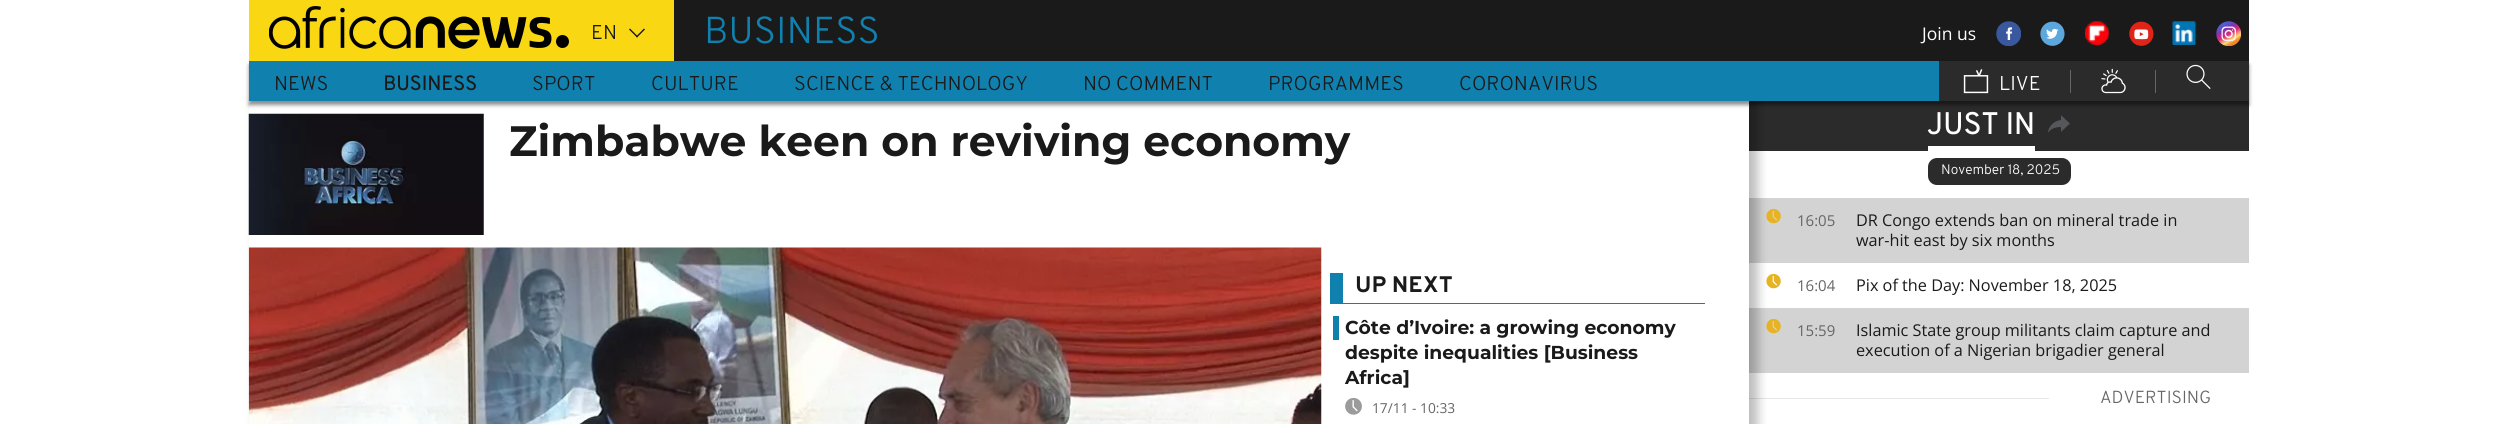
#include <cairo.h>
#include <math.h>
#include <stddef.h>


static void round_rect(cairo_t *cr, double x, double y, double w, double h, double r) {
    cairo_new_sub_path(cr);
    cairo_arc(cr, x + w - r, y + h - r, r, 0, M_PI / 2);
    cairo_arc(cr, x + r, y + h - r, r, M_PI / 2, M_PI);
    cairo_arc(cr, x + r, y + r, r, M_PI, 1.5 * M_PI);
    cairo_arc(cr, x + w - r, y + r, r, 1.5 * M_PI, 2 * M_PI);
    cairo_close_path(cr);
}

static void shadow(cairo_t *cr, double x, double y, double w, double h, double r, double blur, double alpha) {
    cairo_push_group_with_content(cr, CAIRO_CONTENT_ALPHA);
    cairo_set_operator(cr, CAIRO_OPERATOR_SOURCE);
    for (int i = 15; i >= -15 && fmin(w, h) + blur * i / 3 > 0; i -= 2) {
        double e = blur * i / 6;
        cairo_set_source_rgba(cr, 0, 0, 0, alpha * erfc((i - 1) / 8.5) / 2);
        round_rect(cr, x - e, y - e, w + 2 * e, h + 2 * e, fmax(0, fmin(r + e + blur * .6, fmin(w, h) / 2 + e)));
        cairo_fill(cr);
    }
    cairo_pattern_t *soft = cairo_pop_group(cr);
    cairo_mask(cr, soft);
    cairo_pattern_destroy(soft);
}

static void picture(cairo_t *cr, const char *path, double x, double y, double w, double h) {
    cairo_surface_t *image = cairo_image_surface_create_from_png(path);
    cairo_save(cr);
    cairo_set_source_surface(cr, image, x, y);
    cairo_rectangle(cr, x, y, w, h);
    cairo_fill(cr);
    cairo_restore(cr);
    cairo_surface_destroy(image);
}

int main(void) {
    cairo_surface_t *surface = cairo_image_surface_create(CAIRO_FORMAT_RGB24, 2497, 424);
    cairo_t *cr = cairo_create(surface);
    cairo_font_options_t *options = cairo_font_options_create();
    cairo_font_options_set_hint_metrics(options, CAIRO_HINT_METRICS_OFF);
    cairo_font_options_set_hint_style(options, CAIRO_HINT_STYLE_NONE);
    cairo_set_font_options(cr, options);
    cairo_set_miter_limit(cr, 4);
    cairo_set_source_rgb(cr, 1, 1, 1);
    cairo_paint(cr);
    cairo_set_source_rgb(cr, 0.102, 0.102, 0.102);
    cairo_rectangle(cr, 674, 0, 1575, 61);
    cairo_fill(cr);
    cairo_set_source_rgb(cr, 0.169, 0.169, 0.169);
    cairo_rectangle(cr, 1749, 101, 500, 50);
    cairo_fill(cr);
    cairo_set_source_rgb(cr, 0.827, 0.827, 0.827);
    cairo_rectangle(cr, 1749, 198, 500, 65);
    cairo_fill(cr);
    picture(cr, "img15.png", 1766, 208, 15, 16);
    picture(cr, "img16.png", 1766, 273, 15, 16);
    cairo_rectangle(cr, 1749, 308, 500, 65);
    cairo_fill(cr);
    picture(cr, "img15.png", 1766, 318, 15, 16);
    cairo_set_source_rgb(cr, 0.902, 0.902, 0.902);
    cairo_rectangle(cr, 1749, 398, 300, 1);
    cairo_fill(cr);
    cairo_set_source_rgb(cr, 0, 0, 0);
    shadow(cr, 284, 99, 1475, 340, 0, 5, 0.15);
    shadow(cr, 255, 99, 1500, 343, 0, 6, 0.15);
    cairo_set_source_rgb(cr, 1, 1, 1);
    cairo_rectangle(cr, 249, 101, 1500, 323);
    cairo_fill(cr);
    cairo_set_source_rgb(cr, 0, 0, 0);
    shadow(cr, 249, 65, 2000, 40, 0, 2, 0.45);
    cairo_set_source_rgb(cr, 0.976, 0.843, 0.075);
    cairo_rectangle(cr, 249, 0, 425, 61);
    cairo_fill(cr);
    picture(cr, "img1.png", 269, 6, 300, 43);
    cairo_select_font_face(cr, "Overpass Light", CAIRO_FONT_SLANT_NORMAL, CAIRO_FONT_WEIGHT_NORMAL);
    cairo_set_font_size(cr, 20);
    cairo_set_source_rgb(cr, 0.102, 0.102, 0.102);
    cairo_move_to(cr, 591, 39);
    cairo_show_text(cr, "EN");
    cairo_new_path(cr);
    cairo_move_to(cr, 636, 36.5);
    cairo_line_to(cr, 644, 28.5);
    cairo_line_to(cr, 645, 29.5);
    cairo_line_to(cr, 637, 37.5);
    cairo_close_path(cr);
    cairo_fill(cr);
    cairo_new_path(cr);
    cairo_move_to(cr, 629, 29.5);
    cairo_line_to(cr, 630, 28.5);
    cairo_line_to(cr, 638, 36.5);
    cairo_line_to(cr, 637, 37.5);
    cairo_close_path(cr);
    cairo_fill(cr);
    cairo_set_font_size(cr, 37.5);
    cairo_set_source_rgb(cr, 0.063, 0.506, 0.682);
    cairo_move_to(cr, 704, 43);
    cairo_show_text(cr, "BUSINESS");
    cairo_select_font_face(cr, "Open Sans", CAIRO_FONT_SLANT_NORMAL, CAIRO_FONT_WEIGHT_NORMAL);
    cairo_set_font_size(cr, 17.5);
    cairo_set_source_rgb(cr, 1, 1, 1);
    cairo_move_to(cr, 1922, 40);
    cairo_show_text(cr, "Join us");
    picture(cr, "img2.png", 1996, 21, 25, 25);
    picture(cr, "img3.png", 2040, 21, 25, 25);
    picture(cr, "img4.png", 2085, 21, 24, 24);
    picture(cr, "img5.png", 2129, 21, 25, 25);
    picture(cr, "img6.png", 2172, 21, 25, 24);
    picture(cr, "img7.png", 2216, 21, 25, 25);
    cairo_set_source_rgb(cr, 0.063, 0.506, 0.682);
    cairo_rectangle(cr, 249, 61, 1690, 40);
    cairo_fill(cr);
    cairo_select_font_face(cr, "Overpass Light", CAIRO_FONT_SLANT_NORMAL, CAIRO_FONT_WEIGHT_NORMAL);
    cairo_set_font_size(cr, 20);
    cairo_set_source_rgb(cr, 0.102, 0.102, 0.102);
    cairo_move_to(cr, 274, 90);
    cairo_show_text(cr, "NEWS");
    cairo_select_font_face(cr, "Overpass", CAIRO_FONT_SLANT_NORMAL, CAIRO_FONT_WEIGHT_BOLD);
    cairo_move_to(cr, 383, 90);
    cairo_show_text(cr, "BUSINESS");
    cairo_select_font_face(cr, "Overpass Light", CAIRO_FONT_SLANT_NORMAL, CAIRO_FONT_WEIGHT_NORMAL);
    cairo_move_to(cr, 532, 90);
    cairo_show_text(cr, "SPORT");
    cairo_move_to(cr, 651, 90);
    cairo_show_text(cr, "CULTURE");
    cairo_move_to(cr, 794, 90);
    cairo_show_text(cr, "SCIENCE & TECHNOLOGY");
    cairo_move_to(cr, 1083, 90);
    cairo_show_text(cr, "NO COMMENT");
    cairo_move_to(cr, 1268, 90);
    cairo_show_text(cr, "PROGRAMMES");
    cairo_move_to(cr, 1459, 90);
    cairo_show_text(cr, "CORONAVIRUS");
    cairo_set_source_rgb(cr, 0.169, 0.169, 0.169);
    cairo_rectangle(cr, 1939, 61, 310, 40);
    cairo_fill(cr);
    picture(cr, "img8.png", 1963, 69, 26, 25);
    cairo_set_source_rgb(cr, 1, 1, 1);
    cairo_move_to(cr, 1999, 90);
    cairo_show_text(cr, "LIVE");
    cairo_set_source_rgb(cr, 0.4, 0.4, 0.4);
    cairo_rectangle(cr, 2070, 70, 1, 23);
    cairo_fill(cr);
    picture(cr, "img9.png", 2101, 68, 25, 26);
    cairo_rectangle(cr, 2155, 70, 1, 23);
    cairo_fill(cr);
    picture(cr, "img10.png", 2186, 64, 25, 25);
    picture(cr, "img11.png", 248, 113, 236, 122);
    cairo_select_font_face(cr, "Montserrat Thin", CAIRO_FONT_SLANT_NORMAL, CAIRO_FONT_WEIGHT_NORMAL);
    cairo_set_font_size(cr, 42.5);
    cairo_set_source_rgb(cr, 0.102, 0.102, 0.102);
    cairo_move_to(cr, 509, 156);
    cairo_show_text(cr, "Zimbabwe keen on reviving economy");
    picture(cr, "img12.png", 248, 247, 1074, 177);
    cairo_set_source_rgb(cr, 0.063, 0.506, 0.682);
    cairo_rectangle(cr, 1330, 303, 375, 1);
    cairo_fill(cr);
    cairo_rectangle(cr, 1330, 273, 13, 30);
    cairo_fill(cr);
    cairo_select_font_face(cr, "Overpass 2", CAIRO_FONT_SLANT_NORMAL, CAIRO_FONT_WEIGHT_BOLD);
    cairo_set_font_size(cr, 22.5);
    cairo_set_source_rgb(cr, 0.102, 0.102, 0.102);
    cairo_move_to(cr, 1355, 292);
    cairo_show_text(cr, "UP NEXT");
    cairo_set_source_rgb(cr, 0.063, 0.506, 0.682);
    cairo_rectangle(cr, 1333, 316, 6, 24);
    cairo_fill(cr);
    cairo_select_font_face(cr, "Montserrat Thin", CAIRO_FONT_SLANT_NORMAL, CAIRO_FONT_WEIGHT_NORMAL);
    cairo_set_font_size(cr, 18.75);
    cairo_set_source_rgb(cr, 0.102, 0.102, 0.102);
    cairo_move_to(cr, 1345, 334);
    cairo_show_text(cr, "Côte d’Ivoire: a growing economy");
    cairo_move_to(cr, 1345, 359);
    cairo_show_text(cr, "despite inequalities [Business");
    cairo_move_to(cr, 1345, 384);
    cairo_show_text(cr, "Africa]");
    picture(cr, "img13.png", 1345, 397, 17, 18);
    cairo_select_font_face(cr, "Open Sans", CAIRO_FONT_SLANT_NORMAL, CAIRO_FONT_WEIGHT_NORMAL);
    cairo_set_font_size(cr, 13.75);
    cairo_set_source_rgb(cr, 0.4, 0.4, 0.4);
    cairo_move_to(cr, 1372, 413);
    cairo_show_text(cr, "17/11 - 10:33");
    cairo_select_font_face(cr, "Overpass", CAIRO_FONT_SLANT_NORMAL, CAIRO_FONT_WEIGHT_BOLD);
    cairo_set_font_size(cr, 30);
    cairo_set_source_rgb(cr, 1, 1, 1);
    cairo_move_to(cr, 1927, 134);
    cairo_show_text(cr, "JUST IN");
    cairo_rectangle(cr, 1928, 146, 107, 5);
    cairo_fill(cr);
    picture(cr, "img14.png", 2048, 115, 22, 18);
    cairo_set_source_rgb(cr, 0.169, 0.169, 0.169);
    round_rect(cr, 1928, 158, 143, 27, 9);
    cairo_fill(cr);
    cairo_select_font_face(cr, "Overpass Light", CAIRO_FONT_SLANT_NORMAL, CAIRO_FONT_WEIGHT_NORMAL);
    cairo_set_font_size(cr, 13.75);
    cairo_set_source_rgb(cr, 1, 1, 1);
    cairo_move_to(cr, 1941, 174);
    cairo_show_text(cr, "November 18, 2025");
    cairo_select_font_face(cr, "Open Sans", CAIRO_FONT_SLANT_NORMAL, CAIRO_FONT_WEIGHT_NORMAL);
    cairo_set_font_size(cr, 15);
    cairo_set_source_rgb(cr, 0.4, 0.4, 0.4);
    cairo_move_to(cr, 1797, 226);
    cairo_show_text(cr, "16:05");
    cairo_set_font_size(cr, 16.25);
    cairo_set_source_rgb(cr, 0.102, 0.102, 0.102);
    cairo_move_to(cr, 1856, 226);
    cairo_show_text(cr, "DR Congo extends ban on mineral trade in");
    cairo_move_to(cr, 1856, 246);
    cairo_show_text(cr, "war-hit east by six months");
    cairo_set_font_size(cr, 15);
    cairo_set_source_rgb(cr, 0.4, 0.4, 0.4);
    cairo_move_to(cr, 1797, 291);
    cairo_show_text(cr, "16:04");
    cairo_set_font_size(cr, 16.25);
    cairo_set_source_rgb(cr, 0.102, 0.102, 0.102);
    cairo_move_to(cr, 1856, 291);
    cairo_show_text(cr, "Pix of the Day: November 18, 2025");
    cairo_set_font_size(cr, 15);
    cairo_set_source_rgb(cr, 0.4, 0.4, 0.4);
    cairo_move_to(cr, 1797, 336);
    cairo_show_text(cr, "15:59");
    cairo_set_font_size(cr, 16.25);
    cairo_set_source_rgb(cr, 0.102, 0.102, 0.102);
    cairo_move_to(cr, 1856, 336);
    cairo_show_text(cr, "Islamic State group militants claim capture and");
    cairo_move_to(cr, 1856, 356);
    cairo_show_text(cr, "execution of a Nigerian brigadier general");
    cairo_select_font_face(cr, "Overpass Light", CAIRO_FONT_SLANT_NORMAL, CAIRO_FONT_WEIGHT_NORMAL);
    cairo_set_font_size(cr, 17.5);
    cairo_set_source_rgb(cr, 0.4, 0.4, 0.4);
    cairo_move_to(cr, 2100, 403);
    cairo_show_text(cr, "ADVERTISING");
    cairo_surface_write_to_png(surface, "page.png");
    cairo_font_options_destroy(options);
    cairo_destroy(cr);
    cairo_surface_destroy(surface);
    return 0;
}
